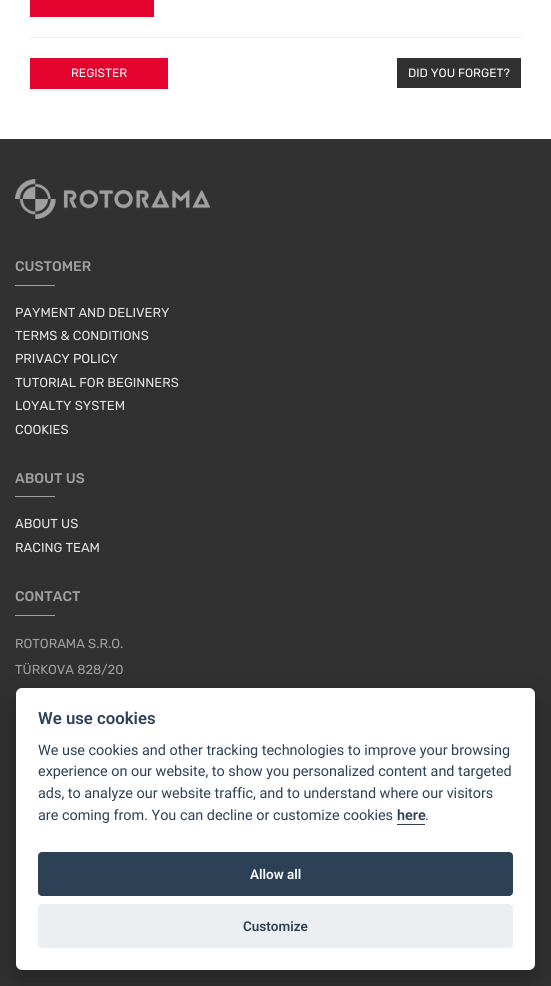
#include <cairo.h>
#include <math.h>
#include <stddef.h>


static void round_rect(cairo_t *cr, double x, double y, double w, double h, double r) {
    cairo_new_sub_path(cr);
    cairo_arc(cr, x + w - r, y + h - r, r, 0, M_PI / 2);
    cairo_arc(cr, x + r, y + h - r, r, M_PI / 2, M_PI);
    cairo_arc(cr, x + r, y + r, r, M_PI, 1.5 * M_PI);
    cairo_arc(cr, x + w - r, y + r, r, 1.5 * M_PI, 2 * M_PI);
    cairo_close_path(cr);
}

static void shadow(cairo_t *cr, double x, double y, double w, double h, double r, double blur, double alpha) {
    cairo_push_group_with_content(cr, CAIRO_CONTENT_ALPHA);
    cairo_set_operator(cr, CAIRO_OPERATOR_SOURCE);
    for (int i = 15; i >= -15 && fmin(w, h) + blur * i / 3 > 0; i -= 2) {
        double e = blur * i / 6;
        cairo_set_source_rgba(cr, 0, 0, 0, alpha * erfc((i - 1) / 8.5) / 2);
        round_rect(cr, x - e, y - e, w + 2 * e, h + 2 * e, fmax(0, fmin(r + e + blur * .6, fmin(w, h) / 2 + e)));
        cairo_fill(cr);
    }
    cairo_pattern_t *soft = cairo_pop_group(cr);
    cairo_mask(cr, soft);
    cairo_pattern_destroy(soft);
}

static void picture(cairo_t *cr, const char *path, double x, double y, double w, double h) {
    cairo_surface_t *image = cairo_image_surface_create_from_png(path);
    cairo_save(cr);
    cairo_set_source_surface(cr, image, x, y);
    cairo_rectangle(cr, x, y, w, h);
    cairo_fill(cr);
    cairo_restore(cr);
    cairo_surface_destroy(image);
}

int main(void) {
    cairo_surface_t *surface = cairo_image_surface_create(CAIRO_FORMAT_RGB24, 551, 986);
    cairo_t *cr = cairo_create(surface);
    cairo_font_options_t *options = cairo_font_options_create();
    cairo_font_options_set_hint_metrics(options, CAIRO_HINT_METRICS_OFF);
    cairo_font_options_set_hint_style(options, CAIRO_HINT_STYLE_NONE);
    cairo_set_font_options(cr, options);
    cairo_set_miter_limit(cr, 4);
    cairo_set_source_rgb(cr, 1, 1, 1);
    cairo_paint(cr);
    cairo_set_source_rgb(cr, 0.894, 0.008, 0.18);
    cairo_rectangle(cr, 30, 0, 124, 17);
    cairo_fill(cr);
    cairo_set_source_rgb(cr, 0.933, 0.933, 0.933);
    cairo_rectangle(cr, 30, 37, 491, 1);
    cairo_fill(cr);
    cairo_set_source_rgb(cr, 0.894, 0.008, 0.18);
    cairo_rectangle(cr, 30, 58, 138, 31);
    cairo_fill(cr);
    cairo_select_font_face(cr, "Rubik", CAIRO_FONT_SLANT_NORMAL, CAIRO_FONT_WEIGHT_NORMAL);
    cairo_set_font_size(cr, 12);
    cairo_set_source_rgb(cr, 1, 1, 1);
    cairo_move_to(cr, 71, 77);
    cairo_show_text(cr, "REGISTER");
    cairo_set_source_rgb(cr, 0.192, 0.192, 0.192);
    cairo_rectangle(cr, 397, 58, 124, 30);
    cairo_fill(cr);
    cairo_set_source_rgb(cr, 1, 1, 1);
    cairo_move_to(cr, 408, 77);
    cairo_show_text(cr, "DID YOU FORGET?");
    cairo_set_source_rgb(cr, 0.192, 0.192, 0.192);
    cairo_rectangle(cr, 0, 139, 551, 847);
    cairo_fill(cr);
    picture(cr, "img1.png", 15, 179, 195, 40);
    cairo_select_font_face(cr, "Rubik Medium", CAIRO_FONT_SLANT_NORMAL, CAIRO_FONT_WEIGHT_NORMAL);
    cairo_set_font_size(cr, 14);
    cairo_set_source_rgb(cr, 0.627, 0.627, 0.627);
    cairo_move_to(cr, 15, 271);
    cairo_show_text(cr, "CUSTOMER");
    cairo_rectangle(cr, 15, 285, 40, 1);
    cairo_fill(cr);
    cairo_select_font_face(cr, "Rubik", CAIRO_FONT_SLANT_NORMAL, CAIRO_FONT_WEIGHT_NORMAL);
    cairo_set_font_size(cr, 13);
    cairo_set_source_rgb(cr, 0.894, 0.894, 0.894);
    cairo_move_to(cr, 15, 317);
    cairo_show_text(cr, "PAYMENT AND DELIVERY");
    cairo_move_to(cr, 15, 340);
    cairo_show_text(cr, "TERMS & CONDITIONS");
    cairo_move_to(cr, 15, 363);
    cairo_show_text(cr, "PRIVACY POLICY");
    cairo_move_to(cr, 15, 387);
    cairo_show_text(cr, "TUTORIAL FOR BEGINNERS");
    cairo_move_to(cr, 15, 410);
    cairo_show_text(cr, "LOYALTY SYSTEM");
    cairo_move_to(cr, 15, 434);
    cairo_show_text(cr, "COOKIES");
    cairo_select_font_face(cr, "Rubik Medium", CAIRO_FONT_SLANT_NORMAL, CAIRO_FONT_WEIGHT_NORMAL);
    cairo_set_font_size(cr, 14);
    cairo_set_source_rgb(cr, 0.627, 0.627, 0.627);
    cairo_move_to(cr, 15, 483);
    cairo_show_text(cr, "ABOUT US");
    cairo_rectangle(cr, 15, 496, 40, 1);
    cairo_fill(cr);
    cairo_select_font_face(cr, "Rubik", CAIRO_FONT_SLANT_NORMAL, CAIRO_FONT_WEIGHT_NORMAL);
    cairo_set_font_size(cr, 13);
    cairo_set_source_rgb(cr, 0.894, 0.894, 0.894);
    cairo_move_to(cr, 15, 528);
    cairo_show_text(cr, "ABOUT US");
    cairo_move_to(cr, 15, 552);
    cairo_show_text(cr, "RACING TEAM");
    cairo_select_font_face(cr, "Rubik Medium", CAIRO_FONT_SLANT_NORMAL, CAIRO_FONT_WEIGHT_NORMAL);
    cairo_set_font_size(cr, 14);
    cairo_set_source_rgb(cr, 0.627, 0.627, 0.627);
    cairo_move_to(cr, 15, 601);
    cairo_show_text(cr, "CONTACT");
    cairo_rectangle(cr, 15, 615, 40, 1);
    cairo_fill(cr);
    cairo_select_font_face(cr, "Rubik", CAIRO_FONT_SLANT_NORMAL, CAIRO_FONT_WEIGHT_NORMAL);
    cairo_set_font_size(cr, 13);
    cairo_move_to(cr, 15, 648);
    cairo_show_text(cr, "ROTORAMA S.R.O.");
    cairo_move_to(cr, 15, 674);
    cairo_show_text(cr, "TÜRKOVA 828/20");
    cairo_set_source_rgb(cr, 0.008, 0.008, 0.012);
    shadow(cr, 16, 698, 519, 282, 6, 15, 0.28);
    cairo_set_source_rgb(cr, 1, 1, 1);
    round_rect(cr, 16, 688, 519, 282, 6);
    cairo_fill(cr);
    cairo_select_font_face(cr, "Roboto SemiBold", CAIRO_FONT_SLANT_NORMAL, CAIRO_FONT_WEIGHT_NORMAL);
    cairo_set_font_size(cr, 16.75);
    cairo_set_source_rgb(cr, 0.176, 0.255, 0.337);
    cairo_move_to(cr, 38, 724);
    cairo_show_text(cr, "We use cookies");
    cairo_select_font_face(cr, "Roboto", CAIRO_FONT_SLANT_NORMAL, CAIRO_FONT_WEIGHT_NORMAL);
    cairo_set_font_size(cr, 14.4);
    cairo_move_to(cr, 38, 755);
    cairo_show_text(cr, "We use cookies and other tracking technologies to improve your browsing");
    cairo_move_to(cr, 38, 776);
    cairo_show_text(cr, "experience on our website, to show you personalized content and targeted");
    cairo_move_to(cr, 38, 798);
    cairo_show_text(cr, "ads, to analyze our website traffic, and to understand where our visitors");
    cairo_move_to(cr, 38, 820);
    cairo_show_text(cr, "are coming from. You can decline or customize cookies");
    cairo_select_font_face(cr, "Roboto SemiBold", CAIRO_FONT_SLANT_NORMAL, CAIRO_FONT_WEIGHT_NORMAL);
    cairo_move_to(cr, 397, 820);
    cairo_show_text(cr, "here");
    cairo_rectangle(cr, 397, 824, 28, 1);
    cairo_fill(cr);
    cairo_select_font_face(cr, "Roboto", CAIRO_FONT_SLANT_NORMAL, CAIRO_FONT_WEIGHT_NORMAL);
    cairo_move_to(cr, 425, 820);
    cairo_show_text(cr, ".");
    round_rect(cr, 38, 852, 475, 44, 4);
    cairo_fill(cr);
    cairo_select_font_face(cr, "Roboto SemiBold", CAIRO_FONT_SLANT_NORMAL, CAIRO_FONT_WEIGHT_NORMAL);
    cairo_set_font_size(cr, 13.5);
    cairo_set_source_rgb(cr, 1, 1, 1);
    cairo_move_to(cr, 250, 879);
    cairo_show_text(cr, "Allow all");
    cairo_set_source_rgb(cr, 0.918, 0.937, 0.949);
    round_rect(cr, 38, 904, 475, 44, 4);
    cairo_fill(cr);
    cairo_set_source_rgb(cr, 0.176, 0.255, 0.337);
    cairo_move_to(cr, 243, 931);
    cairo_show_text(cr, "Customize");
    cairo_surface_write_to_png(surface, "page.png");
    cairo_font_options_destroy(options);
    cairo_destroy(cr);
    cairo_surface_destroy(surface);
    return 0;
}
